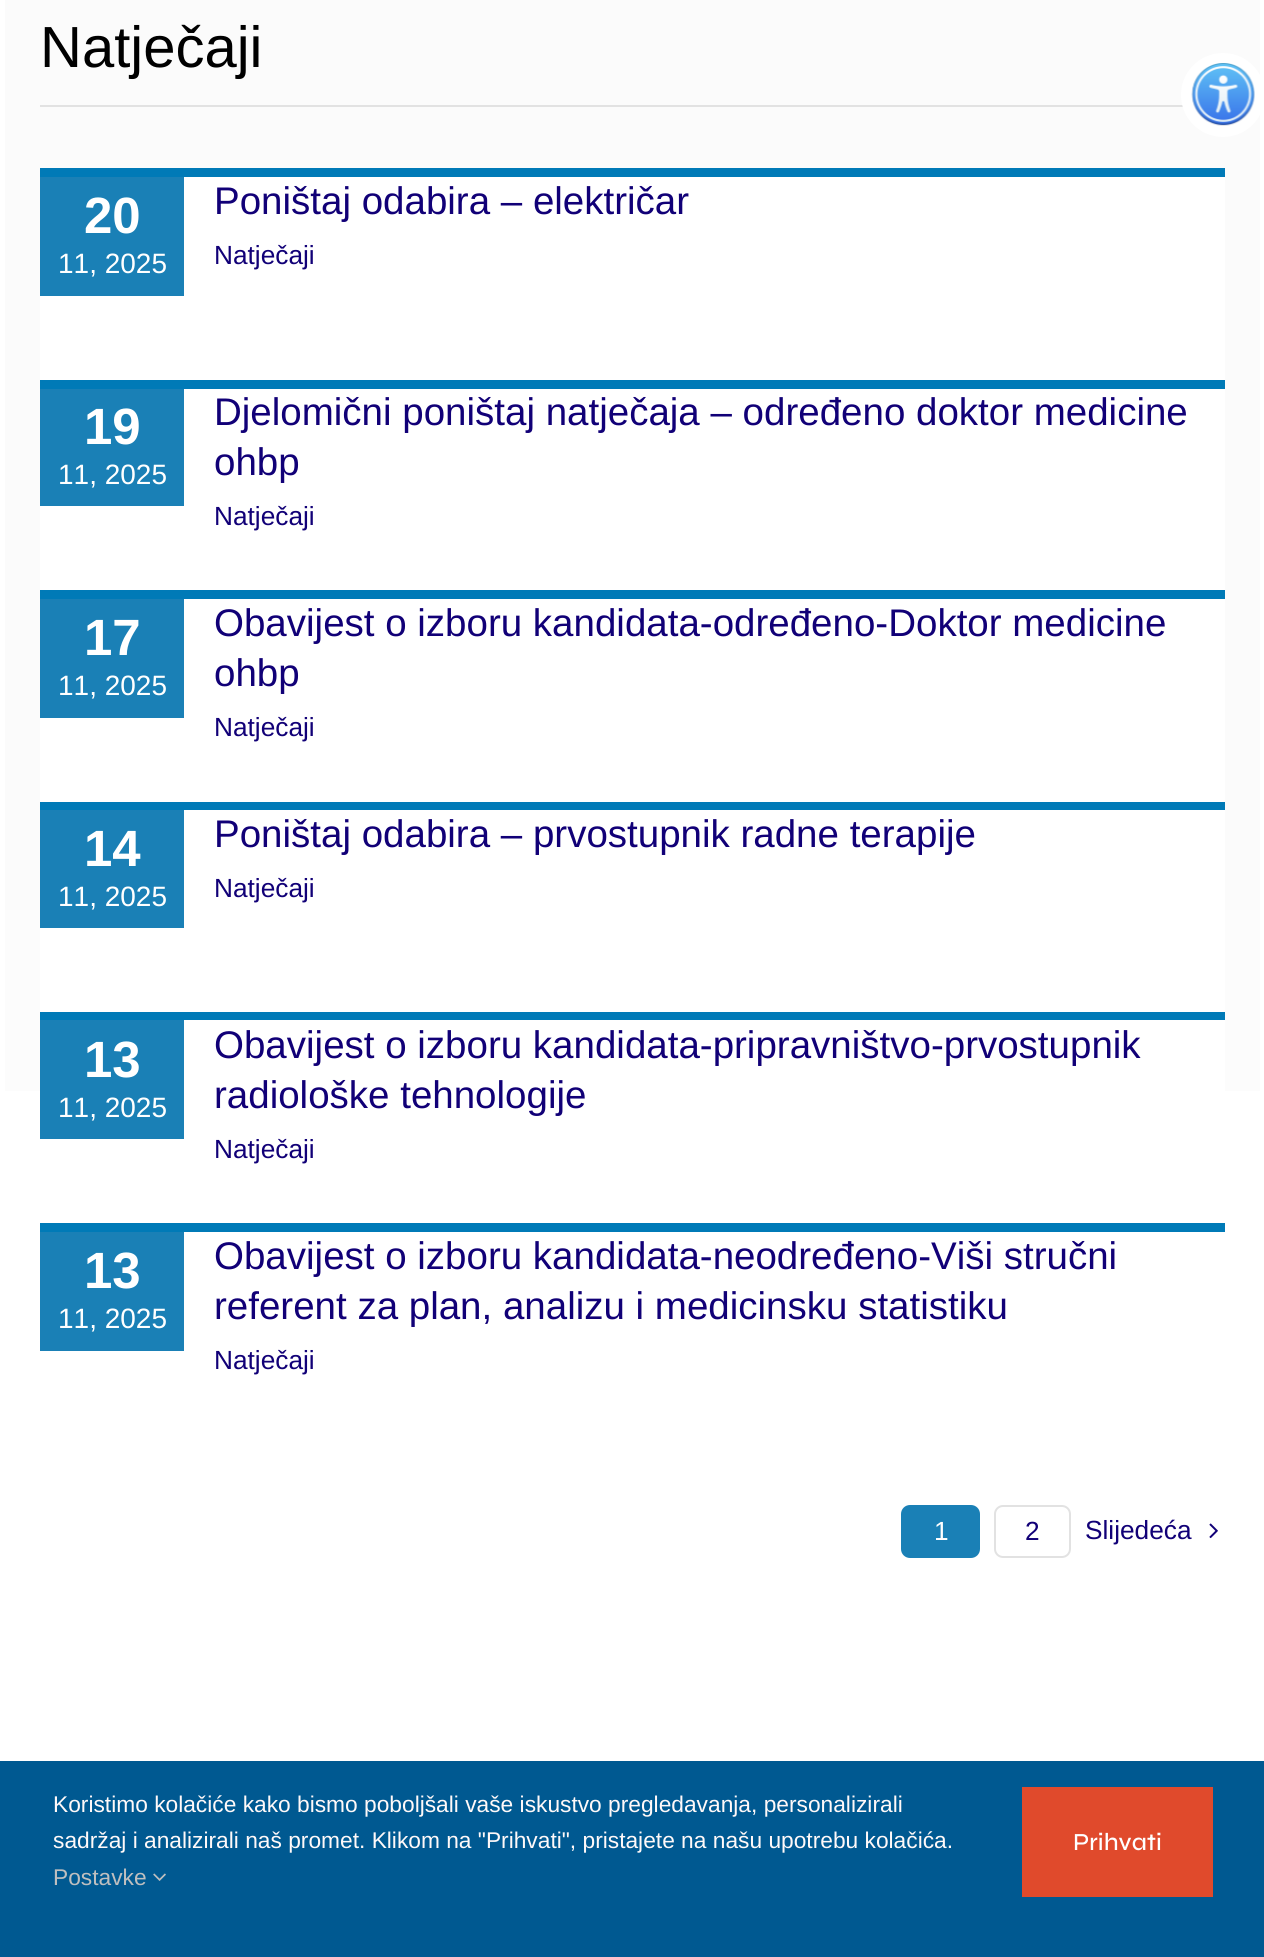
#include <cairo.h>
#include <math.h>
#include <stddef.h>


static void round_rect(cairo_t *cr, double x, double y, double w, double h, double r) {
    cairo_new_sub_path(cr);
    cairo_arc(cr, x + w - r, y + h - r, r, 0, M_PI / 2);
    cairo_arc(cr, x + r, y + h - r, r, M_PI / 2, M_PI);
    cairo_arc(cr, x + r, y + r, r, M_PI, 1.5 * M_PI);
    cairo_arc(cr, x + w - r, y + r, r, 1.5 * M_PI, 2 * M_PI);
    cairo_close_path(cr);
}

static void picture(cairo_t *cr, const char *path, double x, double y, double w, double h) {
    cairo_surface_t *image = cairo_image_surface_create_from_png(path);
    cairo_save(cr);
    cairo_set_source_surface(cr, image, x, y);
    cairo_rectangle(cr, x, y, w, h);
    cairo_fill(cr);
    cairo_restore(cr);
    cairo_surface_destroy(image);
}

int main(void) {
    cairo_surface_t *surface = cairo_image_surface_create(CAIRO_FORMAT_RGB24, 1264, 1957);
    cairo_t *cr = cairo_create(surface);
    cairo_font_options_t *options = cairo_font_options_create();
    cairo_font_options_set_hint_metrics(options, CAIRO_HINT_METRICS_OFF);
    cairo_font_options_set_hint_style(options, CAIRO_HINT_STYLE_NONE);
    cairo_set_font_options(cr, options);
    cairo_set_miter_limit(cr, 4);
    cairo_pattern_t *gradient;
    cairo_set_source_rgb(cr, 1, 1, 1);
    cairo_paint(cr);
    gradient = cairo_pattern_create_linear(633, -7, 633, 1575);
    cairo_pattern_add_color_stop_rgba(gradient, 0.51, 0.984, 0.984, 0.984, 1);
    cairo_pattern_add_color_stop_rgba(gradient, 1, 1, 1, 1, 1);
    cairo_set_source(cr, gradient);
    cairo_pattern_destroy(gradient);
    cairo_rectangle(cr, 5, 0, 1255, 1091);
    cairo_fill(cr);
    cairo_set_source_rgb(cr, 0.886, 0.886, 0.886);
    cairo_rectangle(cr, 40, 105, 1143, 2);
    cairo_fill(cr);
    cairo_select_font_face(cr, "Liberation Sans", CAIRO_FONT_SLANT_NORMAL, CAIRO_FONT_WEIGHT_NORMAL);
    cairo_set_font_size(cr, 58);
    cairo_set_source_rgb(cr, 0, 0, 0);
    cairo_move_to(cr, 40, 67);
    cairo_show_text(cr, "Natječaji");
    cairo_set_source_rgb(cr, 1, 1, 1);
    cairo_rectangle(cr, 40, 177, 1185, 914);
    cairo_fill(cr);
    cairo_set_source_rgb(cr, 0, 0.478, 0.718);
    cairo_rectangle(cr, 40, 168, 1185, 9);
    cairo_fill(cr);
    cairo_set_source_rgb(cr, 0.102, 0.502, 0.714);
    cairo_rectangle(cr, 40, 177, 144, 119);
    cairo_fill(cr);
    cairo_select_font_face(cr, "Liberation Sans", CAIRO_FONT_SLANT_NORMAL, CAIRO_FONT_WEIGHT_BOLD);
    cairo_set_font_size(cr, 51);
    cairo_set_source_rgb(cr, 1, 1, 1);
    cairo_move_to(cr, 84, 233);
    cairo_show_text(cr, "20");
    cairo_select_font_face(cr, "Liberation Sans", CAIRO_FONT_SLANT_NORMAL, CAIRO_FONT_WEIGHT_NORMAL);
    cairo_set_font_size(cr, 28);
    cairo_move_to(cr, 58, 273);
    cairo_show_text(cr, "11, 2025");
    cairo_set_font_size(cr, 38.5);
    cairo_set_source_rgb(cr, 0.067, 0, 0.467);
    cairo_move_to(cr, 214, 214);
    cairo_show_text(cr, "Poništaj odabira – električar");
    cairo_set_font_size(cr, 26.25);
    cairo_move_to(cr, 214, 264);
    cairo_show_text(cr, "Natječaji");
    cairo_set_source_rgb(cr, 0, 0.478, 0.718);
    cairo_rectangle(cr, 40, 380, 1185, 9);
    cairo_fill(cr);
    cairo_set_source_rgb(cr, 0.102, 0.502, 0.714);
    cairo_rectangle(cr, 40, 389, 144, 117);
    cairo_fill(cr);
    cairo_select_font_face(cr, "Liberation Sans", CAIRO_FONT_SLANT_NORMAL, CAIRO_FONT_WEIGHT_BOLD);
    cairo_set_font_size(cr, 51);
    cairo_set_source_rgb(cr, 1, 1, 1);
    cairo_move_to(cr, 84, 444);
    cairo_show_text(cr, "19");
    cairo_select_font_face(cr, "Liberation Sans", CAIRO_FONT_SLANT_NORMAL, CAIRO_FONT_WEIGHT_NORMAL);
    cairo_set_font_size(cr, 28);
    cairo_move_to(cr, 58, 484);
    cairo_show_text(cr, "11, 2025");
    cairo_set_font_size(cr, 38.5);
    cairo_set_source_rgb(cr, 0.067, 0, 0.467);
    cairo_move_to(cr, 214, 425);
    cairo_show_text(cr, "Djelomični poništaj natječaja – određeno doktor medicine");
    cairo_move_to(cr, 214, 475);
    cairo_show_text(cr, "ohbp");
    cairo_set_font_size(cr, 26.25);
    cairo_move_to(cr, 214, 525);
    cairo_show_text(cr, "Natječaji");
    cairo_set_source_rgb(cr, 0, 0.478, 0.718);
    cairo_rectangle(cr, 40, 590, 1185, 9);
    cairo_fill(cr);
    cairo_set_source_rgb(cr, 0.102, 0.502, 0.714);
    cairo_rectangle(cr, 40, 599, 144, 119);
    cairo_fill(cr);
    cairo_select_font_face(cr, "Liberation Sans", CAIRO_FONT_SLANT_NORMAL, CAIRO_FONT_WEIGHT_BOLD);
    cairo_set_font_size(cr, 51);
    cairo_set_source_rgb(cr, 1, 1, 1);
    cairo_move_to(cr, 84, 655);
    cairo_show_text(cr, "17");
    cairo_select_font_face(cr, "Liberation Sans", CAIRO_FONT_SLANT_NORMAL, CAIRO_FONT_WEIGHT_NORMAL);
    cairo_set_font_size(cr, 28);
    cairo_move_to(cr, 58, 695);
    cairo_show_text(cr, "11, 2025");
    cairo_set_font_size(cr, 38.5);
    cairo_set_source_rgb(cr, 0.067, 0, 0.467);
    cairo_move_to(cr, 214, 636);
    cairo_show_text(cr, "Obavijest o izboru kandidata-određeno-Doktor medicine");
    cairo_move_to(cr, 214, 686);
    cairo_show_text(cr, "ohbp");
    cairo_set_font_size(cr, 26.25);
    cairo_move_to(cr, 214, 736);
    cairo_show_text(cr, "Natječaji");
    cairo_set_source_rgb(cr, 0, 0.478, 0.718);
    cairo_rectangle(cr, 40, 802, 1185, 8);
    cairo_fill(cr);
    cairo_set_source_rgb(cr, 0.102, 0.502, 0.714);
    cairo_rectangle(cr, 40, 810, 144, 118);
    cairo_fill(cr);
    cairo_select_font_face(cr, "Liberation Sans", CAIRO_FONT_SLANT_NORMAL, CAIRO_FONT_WEIGHT_BOLD);
    cairo_set_font_size(cr, 51);
    cairo_set_source_rgb(cr, 1, 1, 1);
    cairo_move_to(cr, 84, 866);
    cairo_show_text(cr, "14");
    cairo_select_font_face(cr, "Liberation Sans", CAIRO_FONT_SLANT_NORMAL, CAIRO_FONT_WEIGHT_NORMAL);
    cairo_set_font_size(cr, 28);
    cairo_move_to(cr, 58, 906);
    cairo_show_text(cr, "11, 2025");
    cairo_set_font_size(cr, 38.5);
    cairo_set_source_rgb(cr, 0.067, 0, 0.467);
    cairo_move_to(cr, 214, 847);
    cairo_show_text(cr, "Poništaj odabira – prvostupnik radne terapije");
    cairo_set_font_size(cr, 26.25);
    cairo_move_to(cr, 214, 897);
    cairo_show_text(cr, "Natječaji");
    cairo_set_source_rgb(cr, 0, 0.478, 0.718);
    cairo_rectangle(cr, 40, 1012, 1185, 8);
    cairo_fill(cr);
    cairo_set_source_rgb(cr, 0.102, 0.502, 0.714);
    cairo_rectangle(cr, 40, 1020, 144, 119);
    cairo_fill(cr);
    cairo_select_font_face(cr, "Liberation Sans", CAIRO_FONT_SLANT_NORMAL, CAIRO_FONT_WEIGHT_BOLD);
    cairo_set_font_size(cr, 51);
    cairo_set_source_rgb(cr, 1, 1, 1);
    cairo_move_to(cr, 84, 1077);
    cairo_show_text(cr, "13");
    cairo_select_font_face(cr, "Liberation Sans", CAIRO_FONT_SLANT_NORMAL, CAIRO_FONT_WEIGHT_NORMAL);
    cairo_set_font_size(cr, 28);
    cairo_move_to(cr, 58, 1117);
    cairo_show_text(cr, "11, 2025");
    cairo_set_font_size(cr, 38.5);
    cairo_set_source_rgb(cr, 0.067, 0, 0.467);
    cairo_move_to(cr, 214, 1058);
    cairo_show_text(cr, "Obavijest o izboru kandidata-pripravništvo-prvostupnik");
    cairo_move_to(cr, 214, 1108);
    cairo_show_text(cr, "radiološke tehnologije");
    cairo_set_font_size(cr, 26.25);
    cairo_move_to(cr, 214, 1158);
    cairo_show_text(cr, "Natječaji");
    cairo_set_source_rgb(cr, 0, 0.478, 0.718);
    cairo_rectangle(cr, 40, 1223, 1185, 9);
    cairo_fill(cr);
    cairo_set_source_rgb(cr, 0.102, 0.502, 0.714);
    cairo_rectangle(cr, 40, 1232, 144, 119);
    cairo_fill(cr);
    cairo_select_font_face(cr, "Liberation Sans", CAIRO_FONT_SLANT_NORMAL, CAIRO_FONT_WEIGHT_BOLD);
    cairo_set_font_size(cr, 51);
    cairo_set_source_rgb(cr, 1, 1, 1);
    cairo_move_to(cr, 84, 1288);
    cairo_show_text(cr, "13");
    cairo_select_font_face(cr, "Liberation Sans", CAIRO_FONT_SLANT_NORMAL, CAIRO_FONT_WEIGHT_NORMAL);
    cairo_set_font_size(cr, 28);
    cairo_move_to(cr, 58, 1328);
    cairo_show_text(cr, "11, 2025");
    cairo_set_font_size(cr, 38.5);
    cairo_set_source_rgb(cr, 0.067, 0, 0.467);
    cairo_move_to(cr, 214, 1269);
    cairo_show_text(cr, "Obavijest o izboru kandidata-neodređeno-Viši stručni");
    cairo_move_to(cr, 214, 1319);
    cairo_show_text(cr, "referent za plan, analizu i medicinsku statistiku");
    cairo_set_font_size(cr, 26.25);
    cairo_move_to(cr, 214, 1369);
    cairo_show_text(cr, "Natječaji");
    cairo_set_source_rgb(cr, 0.102, 0.502, 0.714);
    round_rect(cr, 902, 1506, 77, 51, 8);
    cairo_fill_preserve(cr);
    cairo_stroke(cr);
    cairo_set_source_rgb(cr, 1, 1, 1);
    cairo_move_to(cr, 934, 1540);
    cairo_show_text(cr, "1");
    round_rect(cr, 995, 1506, 75, 51, 8);
    cairo_set_source_rgb(cr, 0.886, 0.886, 0.886);
    cairo_stroke(cr);
    cairo_set_source_rgb(cr, 0.067, 0, 0.467);
    cairo_move_to(cr, 1025, 1540);
    cairo_show_text(cr, "2");
    cairo_move_to(cr, 1085, 1539);
    cairo_show_text(cr, "Slijedeća");
    picture(cr, "img1.png", 1209, 1523, 9, 16);
    cairo_set_source_rgb(cr, 1, 1, 1);
    cairo_arc(cr, 1223, 95, 42, 0, 2 * M_PI);
    cairo_fill(cr);
    picture(cr, "img2.png", 1191, 63, 64, 63);
    cairo_set_source_rgb(cr, 0, 0.349, 0.569);
    cairo_rectangle(cr, 0, 1761, 1264, 196);
    cairo_fill(cr);
    cairo_set_font_size(cr, 22.75);
    cairo_set_source_rgb(cr, 1, 0.976, 0.976);
    cairo_move_to(cr, 53, 1812);
    cairo_show_text(cr, "Koristimo kolačiće kako bismo poboljšali vaše iskustvo pregledavanja, personalizirali");
    cairo_move_to(cr, 53, 1848);
    cairo_show_text(cr, "sadržaj i analizirali naš promet. Klikom na \"Prihvati\", pristajete na našu upotrebu kolačića.");
    cairo_set_source_rgb(cr, 0.749, 0.749, 0.749);
    cairo_move_to(cr, 53, 1885);
    cairo_show_text(cr, "Postavke");
    picture(cr, "img3.png", 153, 1873, 13, 8);
    cairo_set_source_rgb(cr, 0.878, 0.29, 0.173);
    cairo_rectangle(cr, 1022, 1787, 191, 110);
    cairo_fill(cr);
    cairo_select_font_face(cr, "Syne Medium", CAIRO_FONT_SLANT_NORMAL, CAIRO_FONT_WEIGHT_NORMAL);
    cairo_set_font_size(cr, 24.5);
    cairo_set_source_rgb(cr, 1, 1, 1);
    cairo_move_to(cr, 1073, 1850);
    cairo_show_text(cr, "Prihvati");
    cairo_surface_write_to_png(surface, "page.png");
    cairo_font_options_destroy(options);
    cairo_destroy(cr);
    cairo_surface_destroy(surface);
    return 0;
}
